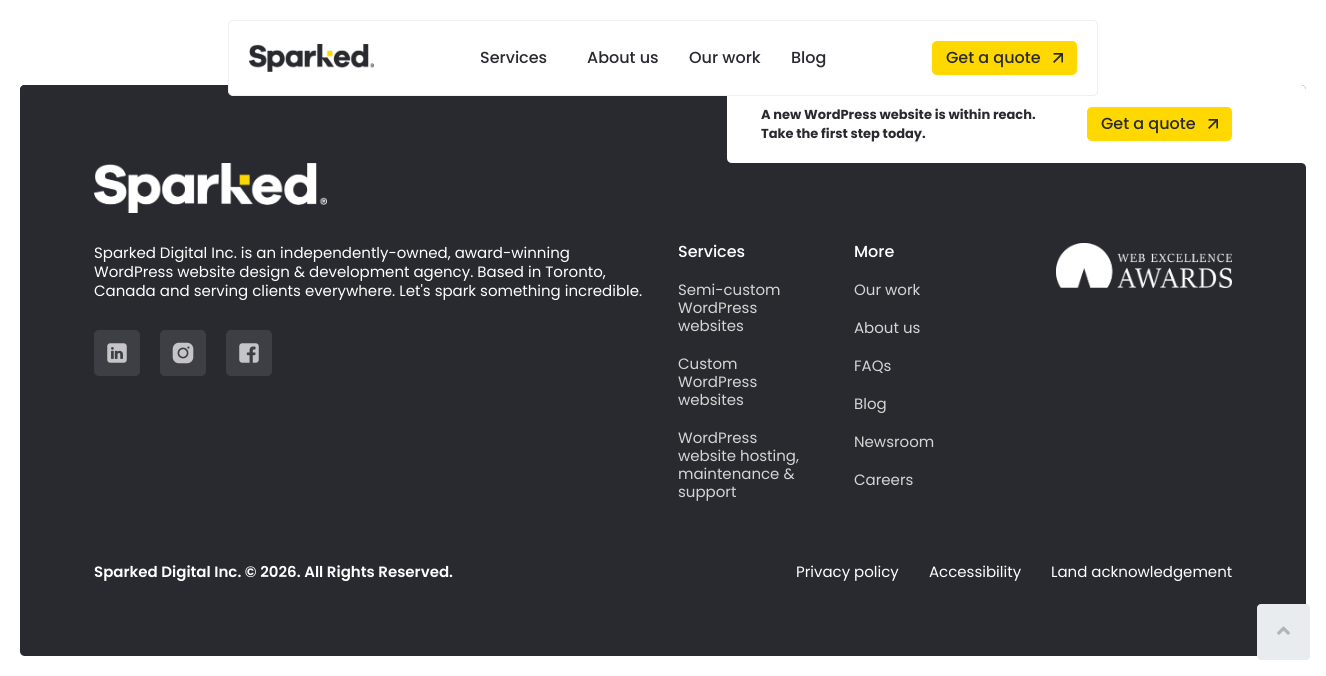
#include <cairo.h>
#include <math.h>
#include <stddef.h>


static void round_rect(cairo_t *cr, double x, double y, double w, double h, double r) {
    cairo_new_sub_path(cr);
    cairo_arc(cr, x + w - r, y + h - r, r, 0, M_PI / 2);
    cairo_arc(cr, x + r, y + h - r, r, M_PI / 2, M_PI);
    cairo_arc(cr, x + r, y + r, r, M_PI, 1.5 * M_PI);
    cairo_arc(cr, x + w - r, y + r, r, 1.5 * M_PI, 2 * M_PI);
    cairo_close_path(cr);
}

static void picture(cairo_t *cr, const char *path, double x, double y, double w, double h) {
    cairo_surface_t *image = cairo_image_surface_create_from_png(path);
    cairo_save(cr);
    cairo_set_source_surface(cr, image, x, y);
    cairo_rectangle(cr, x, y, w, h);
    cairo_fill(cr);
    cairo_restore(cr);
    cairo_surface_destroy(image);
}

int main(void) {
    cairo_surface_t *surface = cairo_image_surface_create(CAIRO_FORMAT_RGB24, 1326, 676);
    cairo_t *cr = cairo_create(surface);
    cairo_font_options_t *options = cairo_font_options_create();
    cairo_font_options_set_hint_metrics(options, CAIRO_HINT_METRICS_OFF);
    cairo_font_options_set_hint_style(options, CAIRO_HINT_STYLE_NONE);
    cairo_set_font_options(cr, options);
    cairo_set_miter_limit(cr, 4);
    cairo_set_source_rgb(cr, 1, 1, 1);
    cairo_paint(cr);
    cairo_set_source_rgb(cr, 0.161, 0.161, 0.188);
    cairo_new_path(cr);
    cairo_move_to(cr, 25, 85);
    cairo_line_to(cr, 1301, 85);
    cairo_curve_to(cr, 1304, 85, 1306, 87, 1306, 90);
    cairo_line_to(cr, 1306, 163);
    cairo_line_to(cr, 20, 163);
    cairo_line_to(cr, 20, 90);
    cairo_curve_to(cr, 20, 87, 22, 85, 25, 85);
    cairo_close_path(cr);
    cairo_fill(cr);
    cairo_new_path(cr);
    cairo_move_to(cr, 25, 85);
    cairo_line_to(cr, 722, 85);
    cairo_curve_to(cr, 725, 85, 727, 87, 727, 90);
    cairo_line_to(cr, 727, 163);
    cairo_line_to(cr, 20, 163);
    cairo_line_to(cr, 20, 90);
    cairo_curve_to(cr, 20, 87, 22, 85, 25, 85);
    cairo_close_path(cr);
    cairo_fill(cr);
    cairo_set_source_rgb(cr, 1, 1, 1);
    cairo_new_path(cr);
    cairo_move_to(cr, 727, 85);
    cairo_line_to(cr, 1301, 85);
    cairo_curve_to(cr, 1304, 85, 1306, 87, 1306, 90);
    cairo_line_to(cr, 1306, 163);
    cairo_line_to(cr, 732, 163);
    cairo_curve_to(cr, 729, 163, 727, 161, 727, 158);
    cairo_close_path(cr);
    cairo_fill(cr);
    cairo_new_path(cr);
    cairo_move_to(cr, 727, 105);
    cairo_line_to(cr, 737, 105);
    cairo_line_to(cr, 737, 90);
    cairo_curve_to(cr, 737, 87, 735, 85, 732, 85);
    cairo_line_to(cr, 722, 85);
    cairo_curve_to(cr, 725, 85, 727, 87, 727, 90);
    cairo_close_path(cr);
    cairo_fill(cr);
    round_rect(cr, 228.5, 20.5, 869, 75, 4.5);
    cairo_fill_preserve(cr);
    cairo_set_source_rgb(cr, 0.937, 0.937, 0.937);
    cairo_set_line_width(cr, 1);
    cairo_stroke(cr);
    picture(cr, "img1.png", 249, 44, 125, 28);
    cairo_select_font_face(cr, "Poppins Medium", CAIRO_FONT_SLANT_NORMAL, CAIRO_FONT_WEIGHT_NORMAL);
    cairo_set_font_size(cr, 16);
    cairo_set_source_rgb(cr, 0.161, 0.161, 0.188);
    cairo_move_to(cr, 480, 63);
    cairo_show_text(cr, "Services");
    cairo_move_to(cr, 587, 63);
    cairo_show_text(cr, "About us");
    cairo_move_to(cr, 689, 63);
    cairo_show_text(cr, "Our work");
    cairo_move_to(cr, 791, 63);
    cairo_show_text(cr, "Blog");
    cairo_set_source_rgb(cr, 1, 0.847, 0);
    round_rect(cr, 932, 41, 145, 34, 5);
    cairo_fill(cr);
    cairo_set_source_rgb(cr, 0.161, 0.161, 0.188);
    cairo_move_to(cr, 946, 63);
    cairo_show_text(cr, "Get a quote");
    picture(cr, "img2.png", 1053, 53, 10, 10);
    cairo_select_font_face(cr, "Poppins", CAIRO_FONT_SLANT_NORMAL, CAIRO_FONT_WEIGHT_BOLD);
    cairo_set_font_size(cr, 13);
    cairo_move_to(cr, 761, 119);
    cairo_show_text(cr, "A new WordPress website is within reach.");
    cairo_move_to(cr, 761, 138);
    cairo_show_text(cr, "Take the first step today.");
    cairo_set_source_rgb(cr, 1, 0.847, 0);
    round_rect(cr, 1087, 107, 145, 34, 5);
    cairo_fill(cr);
    cairo_select_font_face(cr, "Poppins Medium", CAIRO_FONT_SLANT_NORMAL, CAIRO_FONT_WEIGHT_NORMAL);
    cairo_set_font_size(cr, 16);
    cairo_set_source_rgb(cr, 0.161, 0.161, 0.188);
    cairo_move_to(cr, 1101, 129);
    cairo_show_text(cr, "Get a quote");
    picture(cr, "img2.png", 1208, 119, 10, 10);
    cairo_new_path(cr);
    cairo_move_to(cr, 20, 163);
    cairo_line_to(cr, 1301, 163);
    cairo_curve_to(cr, 1304, 163, 1306, 165, 1306, 168);
    cairo_line_to(cr, 1306, 213);
    cairo_line_to(cr, 20, 213);
    cairo_close_path(cr);
    cairo_fill(cr);
    picture(cr, "img3.png", 94, 163, 233, 50);
    cairo_rectangle(cr, 20, 213, 1286, 348);
    cairo_fill(cr);
    cairo_select_font_face(cr, "Poppins", CAIRO_FONT_SLANT_NORMAL, CAIRO_FONT_WEIGHT_NORMAL);
    cairo_set_font_size(cr, 15);
    cairo_set_source_rgb(cr, 1, 1, 1);
    cairo_move_to(cr, 94, 258);
    cairo_show_text(cr, "Sparked Digital Inc. is an independently-owned, award-winning");
    cairo_move_to(cr, 94, 277);
    cairo_show_text(cr, "WordPress website design & development agency. Based in Toronto,");
    cairo_move_to(cr, 94, 296);
    cairo_show_text(cr, "Canada and serving clients everywhere. Let's spark something incredible.");
    cairo_set_source_rgb(cr, 0.243, 0.243, 0.271);
    round_rect(cr, 94, 330, 46, 46, 5);
    cairo_fill(cr);
    picture(cr, "img4.png", 107, 343, 20, 20);
    round_rect(cr, 160, 330, 46, 46, 5);
    cairo_fill(cr);
    picture(cr, "img5.png", 172, 342, 22, 22);
    round_rect(cr, 226, 330, 46, 46, 5);
    cairo_fill(cr);
    picture(cr, "img6.png", 239, 343, 20, 20);
    cairo_select_font_face(cr, "Poppins Medium", CAIRO_FONT_SLANT_NORMAL, CAIRO_FONT_WEIGHT_NORMAL);
    cairo_set_font_size(cr, 16);
    cairo_set_source_rgb(cr, 1, 1, 1);
    cairo_move_to(cr, 678, 257);
    cairo_show_text(cr, "Services");
    cairo_select_font_face(cr, "Poppins", CAIRO_FONT_SLANT_NORMAL, CAIRO_FONT_WEIGHT_NORMAL);
    cairo_set_font_size(cr, 15);
    cairo_set_source_rgb(cr, 0.835, 0.835, 0.835);
    cairo_move_to(cr, 678, 295);
    cairo_show_text(cr, "Semi-custom");
    cairo_move_to(cr, 678, 313);
    cairo_show_text(cr, "WordPress");
    cairo_move_to(cr, 678, 331);
    cairo_show_text(cr, "websites");
    cairo_move_to(cr, 678, 369);
    cairo_show_text(cr, "Custom");
    cairo_move_to(cr, 678, 387);
    cairo_show_text(cr, "WordPress");
    cairo_move_to(cr, 678, 405);
    cairo_show_text(cr, "websites");
    cairo_move_to(cr, 678, 443);
    cairo_show_text(cr, "WordPress");
    cairo_move_to(cr, 678, 461);
    cairo_show_text(cr, "website hosting,");
    cairo_move_to(cr, 678, 479);
    cairo_show_text(cr, "maintenance &");
    cairo_move_to(cr, 678, 497);
    cairo_show_text(cr, "support");
    cairo_select_font_face(cr, "Poppins Medium", CAIRO_FONT_SLANT_NORMAL, CAIRO_FONT_WEIGHT_NORMAL);
    cairo_set_font_size(cr, 16);
    cairo_set_source_rgb(cr, 1, 1, 1);
    cairo_move_to(cr, 854, 257);
    cairo_show_text(cr, "More");
    cairo_select_font_face(cr, "Poppins", CAIRO_FONT_SLANT_NORMAL, CAIRO_FONT_WEIGHT_NORMAL);
    cairo_set_font_size(cr, 15);
    cairo_set_source_rgb(cr, 0.835, 0.835, 0.835);
    cairo_move_to(cr, 854, 295);
    cairo_show_text(cr, "Our work");
    cairo_move_to(cr, 854, 333);
    cairo_show_text(cr, "About us");
    cairo_move_to(cr, 854, 371);
    cairo_show_text(cr, "FAQs");
    cairo_move_to(cr, 854, 409);
    cairo_show_text(cr, "Blog");
    cairo_move_to(cr, 854, 447);
    cairo_show_text(cr, "Newsroom");
    cairo_move_to(cr, 854, 485);
    cairo_show_text(cr, "Careers");
    picture(cr, "img7.png", 1056, 243, 176, 45);
    cairo_set_source_rgb(cr, 0.161, 0.161, 0.188);
    cairo_new_path(cr);
    cairo_move_to(cr, 20, 561);
    cairo_line_to(cr, 1306, 561);
    cairo_line_to(cr, 1306, 651);
    cairo_curve_to(cr, 1306, 654, 1304, 656, 1301, 656);
    cairo_line_to(cr, 25, 656);
    cairo_curve_to(cr, 22, 656, 20, 654, 20, 651);
    cairo_close_path(cr);
    cairo_fill(cr);
    cairo_select_font_face(cr, "Poppins SemiBold", CAIRO_FONT_SLANT_NORMAL, CAIRO_FONT_WEIGHT_NORMAL);
    cairo_set_source_rgb(cr, 1, 1, 1);
    cairo_move_to(cr, 94, 577);
    cairo_show_text(cr, "Sparked Digital Inc. © 2026. All Rights Reserved.");
    cairo_select_font_face(cr, "Poppins", CAIRO_FONT_SLANT_NORMAL, CAIRO_FONT_WEIGHT_NORMAL);
    cairo_move_to(cr, 796, 577);
    cairo_show_text(cr, "Privacy policy");
    cairo_move_to(cr, 929, 577);
    cairo_show_text(cr, "Accessibility");
    cairo_move_to(cr, 1051, 577);
    cairo_show_text(cr, "Land acknowledgement");
    cairo_set_source_rgb(cr, 0.914, 0.925, 0.937);
    round_rect(cr, 1257.5, 604.5, 52, 55, 3.5);
    cairo_fill_preserve(cr);
    cairo_stroke(cr);
    picture(cr, "img8.png", 1277, 626, 13, 9);
    cairo_surface_write_to_png(surface, "page.png");
    cairo_font_options_destroy(options);
    cairo_destroy(cr);
    cairo_surface_destroy(surface);
    return 0;
}
